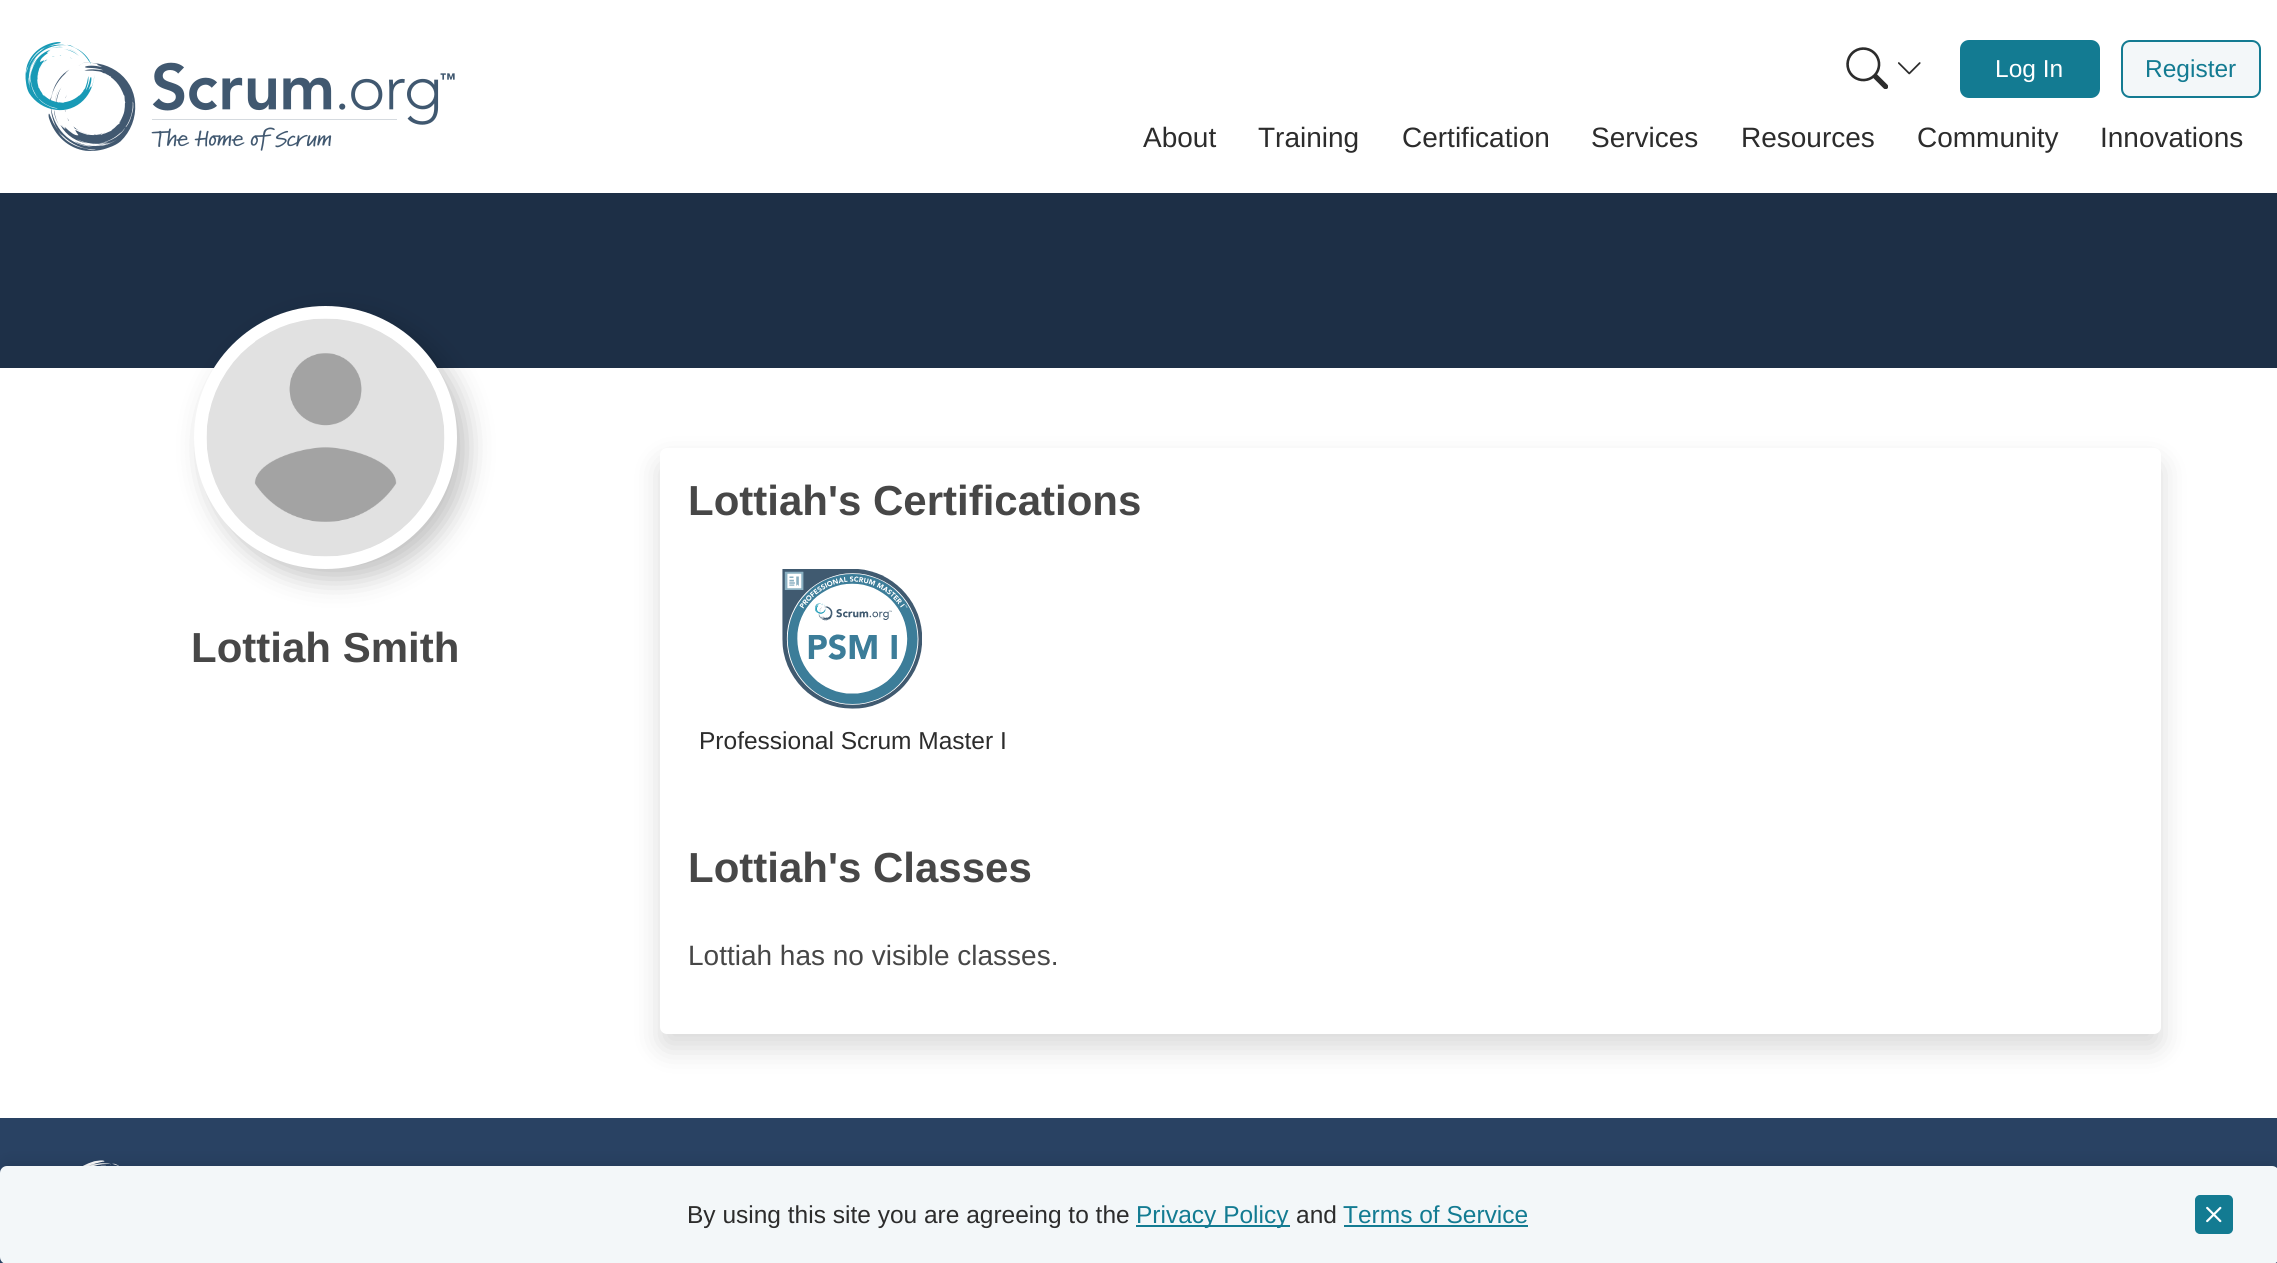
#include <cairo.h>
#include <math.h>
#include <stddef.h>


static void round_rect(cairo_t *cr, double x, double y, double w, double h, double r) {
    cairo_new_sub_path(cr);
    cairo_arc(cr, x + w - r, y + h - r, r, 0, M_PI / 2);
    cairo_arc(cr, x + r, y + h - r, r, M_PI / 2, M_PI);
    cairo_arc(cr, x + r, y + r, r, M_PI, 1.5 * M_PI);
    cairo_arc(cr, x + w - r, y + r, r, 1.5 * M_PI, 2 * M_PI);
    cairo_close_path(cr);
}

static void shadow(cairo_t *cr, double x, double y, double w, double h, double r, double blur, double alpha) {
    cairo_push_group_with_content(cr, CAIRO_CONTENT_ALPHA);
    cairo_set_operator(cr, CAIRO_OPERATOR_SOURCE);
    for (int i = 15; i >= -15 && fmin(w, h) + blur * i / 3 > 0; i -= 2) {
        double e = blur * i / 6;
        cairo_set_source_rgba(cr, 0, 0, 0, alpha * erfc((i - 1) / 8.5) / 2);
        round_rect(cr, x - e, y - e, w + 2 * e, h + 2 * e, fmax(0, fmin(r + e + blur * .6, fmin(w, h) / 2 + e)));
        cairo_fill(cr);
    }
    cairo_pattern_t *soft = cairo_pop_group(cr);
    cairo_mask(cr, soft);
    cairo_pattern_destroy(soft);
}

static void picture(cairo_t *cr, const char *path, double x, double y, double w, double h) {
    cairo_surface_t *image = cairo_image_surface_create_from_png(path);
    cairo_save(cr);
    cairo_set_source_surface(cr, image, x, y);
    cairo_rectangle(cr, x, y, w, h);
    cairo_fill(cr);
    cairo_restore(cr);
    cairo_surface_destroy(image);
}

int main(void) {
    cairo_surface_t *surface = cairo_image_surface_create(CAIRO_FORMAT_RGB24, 2277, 1263);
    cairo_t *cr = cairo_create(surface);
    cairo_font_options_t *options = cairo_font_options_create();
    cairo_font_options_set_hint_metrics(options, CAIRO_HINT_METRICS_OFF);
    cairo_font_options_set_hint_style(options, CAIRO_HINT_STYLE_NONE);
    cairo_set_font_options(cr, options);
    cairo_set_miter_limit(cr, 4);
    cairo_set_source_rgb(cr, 1, 1, 1);
    cairo_paint(cr);
    picture(cr, "img1.png", 25, 42, 430, 109);
    picture(cr, "img2.png", 1846, 47, 42, 42);
    picture(cr, "img3.png", 1898, 62, 23, 13);
    cairo_set_source_rgb(cr, 0.075, 0.482, 0.573);
    round_rect(cr, 1961, 41, 138, 56, 8);
    cairo_fill_preserve(cr);
    cairo_stroke(cr);
    cairo_select_font_face(cr, "Liberation Sans", CAIRO_FONT_SLANT_NORMAL, CAIRO_FONT_WEIGHT_NORMAL);
    cairo_set_font_size(cr, 24.5);
    cairo_set_source_rgb(cr, 1, 1, 1);
    cairo_move_to(cr, 1995, 77);
    cairo_show_text(cr, "Log In");
    cairo_set_source_rgb(cr, 0.953, 0.965, 0.973);
    round_rect(cr, 2122, 41, 138, 56, 8);
    cairo_fill_preserve(cr);
    cairo_set_source_rgb(cr, 0.075, 0.482, 0.573);
    cairo_stroke(cr);
    cairo_move_to(cr, 2145, 77);
    cairo_show_text(cr, "Register");
    cairo_set_font_size(cr, 28);
    cairo_set_source_rgb(cr, 0.173, 0.173, 0.173);
    cairo_move_to(cr, 1143, 147);
    cairo_show_text(cr, "About");
    cairo_move_to(cr, 1258, 147);
    cairo_show_text(cr, "Training");
    cairo_move_to(cr, 1402, 147);
    cairo_show_text(cr, "Certification");
    cairo_move_to(cr, 1591, 147);
    cairo_show_text(cr, "Services");
    cairo_move_to(cr, 1741, 147);
    cairo_show_text(cr, "Resources");
    cairo_move_to(cr, 1917, 147);
    cairo_show_text(cr, "Community");
    cairo_move_to(cr, 2100, 147);
    cairo_show_text(cr, "Innovations");
    cairo_set_source_rgb(cr, 0.114, 0.184, 0.275);
    cairo_rectangle(cr, 0, 193, 2277, 175);
    cairo_fill(cr);
    cairo_set_source_rgb(cr, 0, 0, 0);
    shadow(cr, 205, 317, 262, 262, 131, 13.5, 0.25);
    cairo_set_source_rgb(cr, 1, 1, 1);
    cairo_arc(cr, 325.5, 437.5, 125.5, 0, 2 * M_PI);
    cairo_fill_preserve(cr);
    cairo_set_line_width(cr, 12);
    cairo_stroke(cr);
    picture(cr, "img4.png", 206, 318, 239, 239);
    cairo_select_font_face(cr, "Liberation Sans", CAIRO_FONT_SLANT_NORMAL, CAIRO_FONT_WEIGHT_BOLD);
    cairo_set_font_size(cr, 42);
    cairo_set_source_rgb(cr, 0.278, 0.278, 0.278);
    cairo_move_to(cr, 191, 662);
    cairo_show_text(cr, "Lottiah Smith");
    cairo_set_source_rgb(cr, 0, 0, 0);
    shadow(cr, 660, 462, 1501, 586, 7, 14, 0.15);
    cairo_set_source_rgb(cr, 1, 1, 1);
    round_rect(cr, 660, 448, 1501, 586, 7);
    cairo_fill(cr);
    cairo_set_source_rgb(cr, 0.278, 0.278, 0.278);
    cairo_move_to(cr, 688, 515);
    cairo_show_text(cr, "Lottiah's Certifications");
    picture(cr, "img5.png", 782, 569, 140, 140);
    cairo_select_font_face(cr, "Liberation Sans", CAIRO_FONT_SLANT_NORMAL, CAIRO_FONT_WEIGHT_NORMAL);
    cairo_set_font_size(cr, 24.5);
    cairo_set_source_rgb(cr, 0.173, 0.173, 0.173);
    cairo_move_to(cr, 699, 749);
    cairo_show_text(cr, "Professional Scrum Master I");
    cairo_select_font_face(cr, "Liberation Sans", CAIRO_FONT_SLANT_NORMAL, CAIRO_FONT_WEIGHT_BOLD);
    cairo_set_font_size(cr, 42);
    cairo_set_source_rgb(cr, 0.278, 0.278, 0.278);
    cairo_move_to(cr, 688, 882);
    cairo_show_text(cr, "Lottiah's Classes");
    cairo_select_font_face(cr, "Liberation Sans", CAIRO_FONT_SLANT_NORMAL, CAIRO_FONT_WEIGHT_NORMAL);
    cairo_set_font_size(cr, 28);
    cairo_move_to(cr, 688, 965);
    cairo_show_text(cr, "Lottiah has no visible classes.");
    cairo_set_source_rgb(cr, 0.161, 0.259, 0.388);
    cairo_rectangle(cr, 0, 1118, 2277, 145);
    cairo_fill(cr);
    picture(cr, "img7.png", 83, 1160, 36, 6);
    cairo_set_source_rgb(cr, 0, 0, 0);
    shadow(cr, 4, 1162, 2271, 91, 4, 7, 0.1);
    cairo_set_source_rgb(cr, 0.953, 0.965, 0.973);
    round_rect(cr, 0, 1166, 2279, 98, 7);
    cairo_fill(cr);
    cairo_set_font_size(cr, 24.5);
    cairo_set_source_rgb(cr, 0.173, 0.173, 0.173);
    cairo_move_to(cr, 687, 1223);
    cairo_show_text(cr, "By using this site you are agreeing to the");
    cairo_set_source_rgb(cr, 0.075, 0.482, 0.573);
    cairo_rectangle(cr, 1136, 1225, 154, 2);
    cairo_fill(cr);
    cairo_move_to(cr, 1136, 1223);
    cairo_show_text(cr, "Privacy Policy");
    cairo_set_source_rgb(cr, 0.173, 0.173, 0.173);
    cairo_move_to(cr, 1296, 1223);
    cairo_show_text(cr, "and");
    cairo_set_source_rgb(cr, 0.075, 0.482, 0.573);
    cairo_move_to(cr, 1343, 1223);
    cairo_show_text(cr, "Terms of Service");
    cairo_rectangle(cr, 1344, 1225, 184, 2);
    cairo_fill(cr);
    round_rect(cr, 2196, 1196, 36, 37, 4);
    cairo_fill_preserve(cr);
    cairo_set_line_width(cr, 2);
    cairo_stroke(cr);
    picture(cr, "img6.png", 2206, 1206, 16, 17);
    cairo_surface_write_to_png(surface, "page.png");
    cairo_font_options_destroy(options);
    cairo_destroy(cr);
    cairo_surface_destroy(surface);
    return 0;
}
